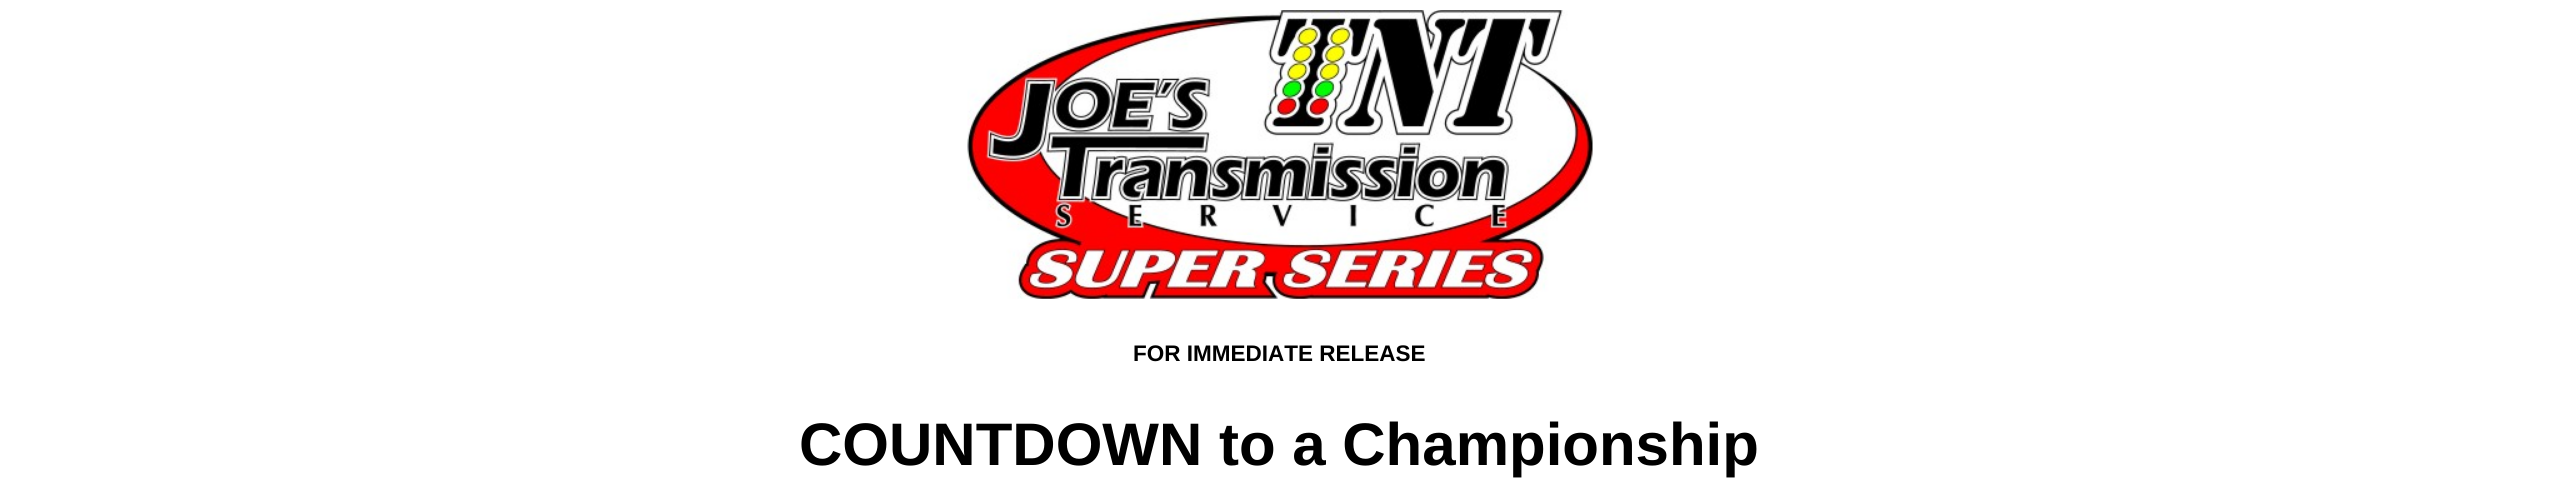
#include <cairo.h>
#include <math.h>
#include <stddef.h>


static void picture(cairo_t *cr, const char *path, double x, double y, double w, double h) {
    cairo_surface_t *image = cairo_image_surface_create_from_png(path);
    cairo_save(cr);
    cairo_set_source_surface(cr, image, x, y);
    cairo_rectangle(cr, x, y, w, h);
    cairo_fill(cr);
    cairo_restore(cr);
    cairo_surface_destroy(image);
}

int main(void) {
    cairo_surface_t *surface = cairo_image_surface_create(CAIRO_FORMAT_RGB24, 2558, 478);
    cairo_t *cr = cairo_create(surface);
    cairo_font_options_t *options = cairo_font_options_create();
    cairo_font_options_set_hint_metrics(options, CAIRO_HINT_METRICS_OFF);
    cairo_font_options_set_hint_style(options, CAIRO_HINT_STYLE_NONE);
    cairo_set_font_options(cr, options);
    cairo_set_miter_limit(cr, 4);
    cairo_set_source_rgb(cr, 1, 1, 1);
    cairo_paint(cr);
    picture(cr, "img1.png", 967, 10, 626, 289);
    cairo_select_font_face(cr, "Liberation Sans", CAIRO_FONT_SLANT_NORMAL, CAIRO_FONT_WEIGHT_BOLD);
    cairo_set_font_size(cr, 22.5);
    cairo_set_source_rgb(cr, 0, 0, 0);
    cairo_move_to(cr, 1133, 361);
    cairo_show_text(cr, "FOR IMMEDIATE RELEASE");
    cairo_set_font_size(cr, 60);
    cairo_move_to(cr, 799, 465);
    cairo_show_text(cr, "COUNTDOWN to a Championship");
    cairo_surface_write_to_png(surface, "page.png");
    cairo_font_options_destroy(options);
    cairo_destroy(cr);
    cairo_surface_destroy(surface);
    return 0;
}
